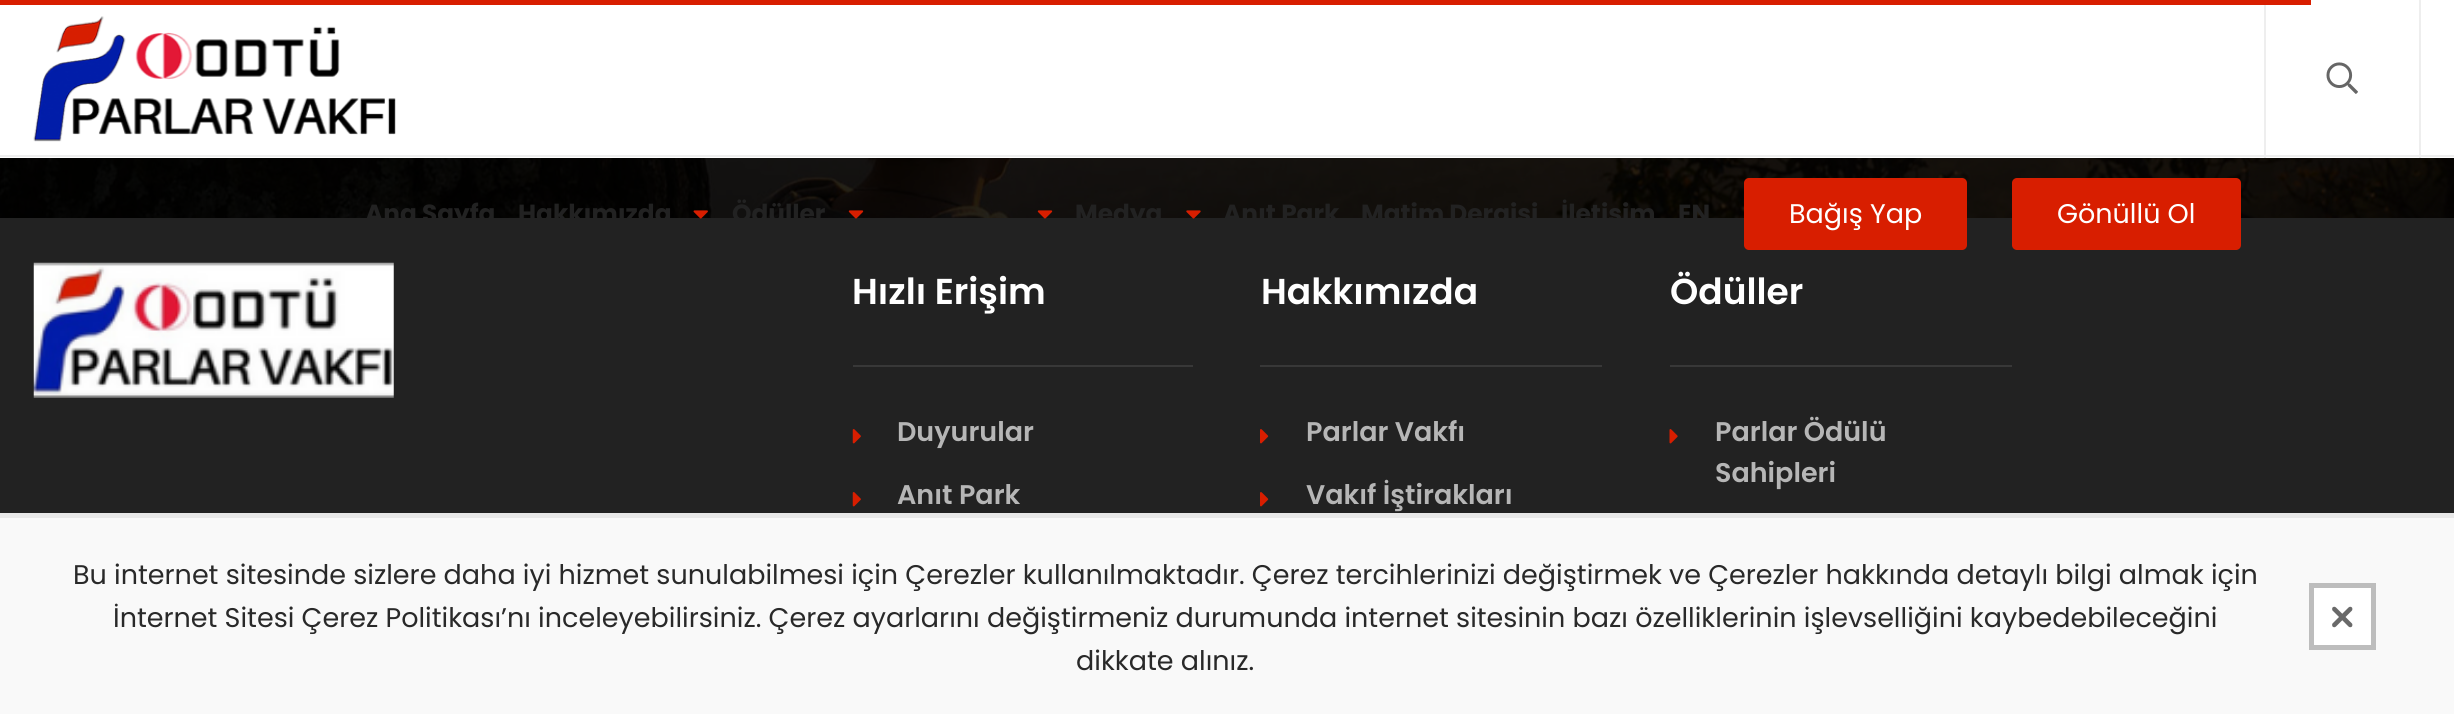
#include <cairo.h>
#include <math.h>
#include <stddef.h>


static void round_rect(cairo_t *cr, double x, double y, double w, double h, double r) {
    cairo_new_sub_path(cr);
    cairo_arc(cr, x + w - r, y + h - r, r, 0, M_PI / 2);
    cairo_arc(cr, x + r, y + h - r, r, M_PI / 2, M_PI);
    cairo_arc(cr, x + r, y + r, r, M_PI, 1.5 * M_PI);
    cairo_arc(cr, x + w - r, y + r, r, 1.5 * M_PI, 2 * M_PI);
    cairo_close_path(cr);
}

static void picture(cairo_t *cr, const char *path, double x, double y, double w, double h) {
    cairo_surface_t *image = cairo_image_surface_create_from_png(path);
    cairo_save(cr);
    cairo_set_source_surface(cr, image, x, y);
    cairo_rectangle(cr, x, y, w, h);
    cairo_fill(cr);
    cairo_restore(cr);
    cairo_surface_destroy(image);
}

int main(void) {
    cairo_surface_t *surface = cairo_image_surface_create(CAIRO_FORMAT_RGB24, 2454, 714);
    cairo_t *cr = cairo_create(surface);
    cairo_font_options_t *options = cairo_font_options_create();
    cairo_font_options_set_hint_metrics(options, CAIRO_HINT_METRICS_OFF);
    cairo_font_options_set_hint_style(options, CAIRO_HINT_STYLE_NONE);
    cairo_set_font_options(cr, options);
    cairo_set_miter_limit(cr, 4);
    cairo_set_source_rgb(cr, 0.133, 0.133, 0.133);
    cairo_paint(cr);
    cairo_set_source_rgb(cr, 1, 1, 1);
    cairo_rectangle(cr, 0, 0, 2454, 158);
    cairo_fill(cr);
    cairo_set_source_rgb(cr, 0.933, 0.933, 0.933);
    cairo_rectangle(cr, 0, 155, 2454, 2);
    cairo_fill(cr);
    cairo_rectangle(cr, 2264, 0, 2, 158);
    cairo_fill(cr);
    cairo_set_source_rgb(cr, 0.847, 0.118, 0);
    cairo_rectangle(cr, 0, 0, 2311, 5);
    cairo_fill(cr);
    picture(cr, "img1.png", 33, 16, 363, 126);
    cairo_set_source_rgb(cr, 0.933, 0.933, 0.933);
    cairo_rectangle(cr, 2419, 0, 2, 158);
    cairo_fill(cr);
    picture(cr, "img2.png", 2326, 62, 32, 32);
    picture(cr, "img7.png", 0, 158, 2454, 60);
    cairo_select_font_face(cr, "Poppins", CAIRO_FONT_SLANT_NORMAL, CAIRO_FONT_WEIGHT_BOLD);
    cairo_set_font_size(cr, 24.75);
    cairo_set_source_rgb(cr, 0.133, 0.133, 0.133);
    cairo_move_to(cr, 365, 222);
    cairo_show_text(cr, "Ana Sayfa");
    cairo_move_to(cr, 518, 222);
    cairo_show_text(cr, "Hakkımızda");
    picture(cr, "img3.png", 693, 210, 15, 9);
    cairo_move_to(cr, 732, 222);
    cairo_show_text(cr, "Ödüller");
    picture(cr, "img4.png", 848, 210, 16, 9);
    picture(cr, "img5.png", 1037, 210, 16, 9);
    cairo_move_to(cr, 1075, 222);
    cairo_show_text(cr, "Medya");
    picture(cr, "img6.png", 1186, 210, 15, 9);
    cairo_move_to(cr, 1223, 222);
    cairo_show_text(cr, "Anıt Park");
    cairo_move_to(cr, 1361, 222);
    cairo_show_text(cr, "Matim Dergisi");
    cairo_move_to(cr, 1561, 222);
    cairo_show_text(cr, "İletişim");
    cairo_move_to(cr, 1678, 222);
    cairo_show_text(cr, "EN");
    cairo_set_source_rgb(cr, 0.847, 0.118, 0);
    round_rect(cr, 1744, 178, 223, 72, 5);
    cairo_fill(cr);
    cairo_select_font_face(cr, "Poppins", CAIRO_FONT_SLANT_NORMAL, CAIRO_FONT_WEIGHT_NORMAL);
    cairo_set_font_size(cr, 27);
    cairo_set_source_rgb(cr, 1, 1, 1);
    cairo_move_to(cr, 1789, 223);
    cairo_show_text(cr, "Bağış Yap");
    cairo_set_source_rgb(cr, 0.847, 0.118, 0);
    round_rect(cr, 2012, 178, 229, 72, 5);
    cairo_fill(cr);
    cairo_set_source_rgb(cr, 1, 1, 1);
    cairo_move_to(cr, 2057, 223);
    cairo_show_text(cr, "Gönüllü Ol");
    picture(cr, "img8.png", 33, 262, 361, 136);
    cairo_set_source_rgb(cr, 0.22, 0.22, 0.22);
    cairo_rectangle(cr, 853, 365, 340, 2);
    cairo_fill(cr);
    cairo_select_font_face(cr, "Poppins SemiBold", CAIRO_FONT_SLANT_NORMAL, CAIRO_FONT_WEIGHT_NORMAL);
    cairo_set_font_size(cr, 36);
    cairo_set_source_rgb(cr, 1, 1, 1);
    cairo_move_to(cr, 852, 304);
    cairo_show_text(cr, "Hızlı Erişim");
    picture(cr, "img9.png", 852, 429, 9, 15);
    cairo_set_font_size(cr, 27);
    cairo_set_source_rgb(cr, 0.714, 0.714, 0.714);
    cairo_move_to(cr, 897, 441);
    cairo_show_text(cr, "Duyurular");
    picture(cr, "img9.png", 852, 492, 9, 15);
    cairo_move_to(cr, 897, 504);
    cairo_show_text(cr, "Anıt Park");
    cairo_set_source_rgb(cr, 0.22, 0.22, 0.22);
    cairo_rectangle(cr, 1260, 365, 342, 2);
    cairo_fill(cr);
    cairo_set_font_size(cr, 36);
    cairo_set_source_rgb(cr, 1, 1, 1);
    cairo_move_to(cr, 1261, 304);
    cairo_show_text(cr, "Hakkımızda");
    picture(cr, "img10.png", 1260, 429, 9, 15);
    cairo_set_font_size(cr, 27);
    cairo_set_source_rgb(cr, 0.714, 0.714, 0.714);
    cairo_move_to(cr, 1306, 441);
    cairo_show_text(cr, "Parlar Vakfı");
    picture(cr, "img10.png", 1260, 492, 9, 15);
    cairo_move_to(cr, 1306, 504);
    cairo_show_text(cr, "Vakıf İştirakları");
    cairo_set_source_rgb(cr, 0.22, 0.22, 0.22);
    cairo_rectangle(cr, 1670, 365, 342, 2);
    cairo_fill(cr);
    cairo_set_font_size(cr, 36);
    cairo_set_source_rgb(cr, 1, 1, 1);
    cairo_move_to(cr, 1670, 304);
    cairo_show_text(cr, "Ödüller");
    picture(cr, "img11.png", 1669, 429, 9, 15);
    cairo_set_font_size(cr, 27);
    cairo_set_source_rgb(cr, 0.714, 0.714, 0.714);
    cairo_move_to(cr, 1715, 441);
    cairo_show_text(cr, "Parlar Ödülü");
    cairo_move_to(cr, 1715, 482);
    cairo_show_text(cr, "Sahipleri");
    cairo_set_source_rgb(cr, 0.973, 0.973, 0.973);
    cairo_rectangle(cr, 0, 518, 2454, 196);
    cairo_fill(cr);
    cairo_set_source_rgb(cr, 0.91, 0.91, 0.91);
    cairo_rectangle(cr, 0, 513, 2454, 5);
    cairo_fill(cr);
    cairo_select_font_face(cr, "Poppins", CAIRO_FONT_SLANT_NORMAL, CAIRO_FONT_WEIGHT_NORMAL);
    cairo_set_source_rgb(cr, 0.161, 0.161, 0.161);
    cairo_move_to(cr, 73, 584);
    cairo_show_text(cr, "Bu internet sitesinde sizlere daha iyi hizmet sunulabilmesi için Çerezler kullanılmaktadır. Çerez tercihlerinizi değiştirmek ve Çerezler hakkında detaylı bilgi almak için");
    cairo_move_to(cr, 113, 627);
    cairo_show_text(cr, "İnternet Sitesi Çerez Politikası’nı inceleyebilirsiniz. Çerez ayarlarını değiştirmeniz durumunda internet sitesinin bazı özelliklerinin işlevselliğini kaybedebileceğini");
    cairo_move_to(cr, 1076, 670);
    cairo_show_text(cr, "dikkate alınız.");
    cairo_set_source_rgb(cr, 1, 1, 1);
    cairo_rectangle(cr, 2311.5, 585.5, 62, 62);
    cairo_fill_preserve(cr);
    cairo_set_source_rgb(cr, 0.741, 0.741, 0.741);
    cairo_set_line_width(cr, 5);
    cairo_stroke(cr);
    cairo_set_source_rgb(cr, 0.412, 0.412, 0.412);
    cairo_new_path(cr);
    cairo_move_to(cr, 2336, 607.5);
    cairo_line_to(cr, 2352, 623.5);
    cairo_curve_to(cr, 2352.5, 624, 2352.5, 625.5, 2352, 626.5);
    cairo_curve_to(cr, 2351, 627.5, 2349.5, 627.5, 2348.5, 626.5);
    cairo_line_to(cr, 2332.5, 610.5);
    cairo_curve_to(cr, 2332, 609.5, 2332, 608.5, 2332.5, 607.5);
    cairo_curve_to(cr, 2333.5, 606.5, 2335, 606.5, 2336, 607.5);
    cairo_close_path(cr);
    cairo_fill(cr);
    cairo_new_path(cr);
    cairo_move_to(cr, 2332.5, 623.5);
    cairo_line_to(cr, 2348.5, 607.5);
    cairo_curve_to(cr, 2349.5, 606.5, 2351, 606.5, 2352, 607.5);
    cairo_curve_to(cr, 2352.5, 608.5, 2352.5, 609.5, 2352, 610.5);
    cairo_line_to(cr, 2336, 626.5);
    cairo_curve_to(cr, 2335, 627.5, 2333.5, 627.5, 2332.5, 626.5);
    cairo_curve_to(cr, 2332, 625.5, 2332, 624, 2332.5, 623.5);
    cairo_close_path(cr);
    cairo_fill(cr);
    cairo_surface_write_to_png(surface, "page.png");
    cairo_font_options_destroy(options);
    cairo_destroy(cr);
    cairo_surface_destroy(surface);
    return 0;
}
